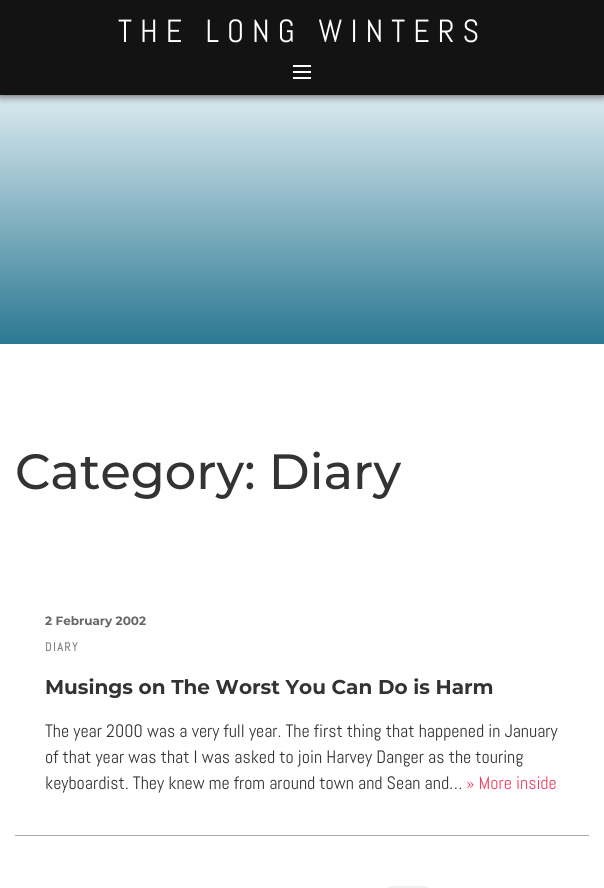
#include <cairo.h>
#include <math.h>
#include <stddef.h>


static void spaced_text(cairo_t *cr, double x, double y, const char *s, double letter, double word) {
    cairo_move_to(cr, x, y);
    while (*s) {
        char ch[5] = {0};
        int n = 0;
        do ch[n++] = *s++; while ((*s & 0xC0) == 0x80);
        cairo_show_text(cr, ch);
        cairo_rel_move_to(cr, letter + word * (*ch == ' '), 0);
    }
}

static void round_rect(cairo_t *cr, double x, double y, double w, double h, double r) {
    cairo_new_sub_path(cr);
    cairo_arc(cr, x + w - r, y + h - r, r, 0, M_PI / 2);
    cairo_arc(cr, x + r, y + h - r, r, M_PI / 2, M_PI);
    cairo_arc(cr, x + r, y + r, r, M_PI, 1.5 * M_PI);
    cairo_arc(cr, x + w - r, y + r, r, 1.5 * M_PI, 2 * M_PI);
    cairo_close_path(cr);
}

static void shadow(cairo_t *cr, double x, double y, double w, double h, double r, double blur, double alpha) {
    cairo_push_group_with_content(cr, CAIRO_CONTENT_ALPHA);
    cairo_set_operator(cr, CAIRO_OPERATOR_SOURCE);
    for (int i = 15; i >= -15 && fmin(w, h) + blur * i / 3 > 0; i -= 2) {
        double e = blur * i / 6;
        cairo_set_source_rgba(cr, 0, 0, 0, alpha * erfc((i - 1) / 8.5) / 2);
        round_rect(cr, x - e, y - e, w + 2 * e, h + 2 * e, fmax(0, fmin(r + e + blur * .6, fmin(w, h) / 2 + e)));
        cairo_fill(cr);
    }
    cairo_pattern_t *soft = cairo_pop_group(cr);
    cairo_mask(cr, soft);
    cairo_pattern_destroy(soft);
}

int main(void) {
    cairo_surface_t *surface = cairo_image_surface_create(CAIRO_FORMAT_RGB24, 604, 888);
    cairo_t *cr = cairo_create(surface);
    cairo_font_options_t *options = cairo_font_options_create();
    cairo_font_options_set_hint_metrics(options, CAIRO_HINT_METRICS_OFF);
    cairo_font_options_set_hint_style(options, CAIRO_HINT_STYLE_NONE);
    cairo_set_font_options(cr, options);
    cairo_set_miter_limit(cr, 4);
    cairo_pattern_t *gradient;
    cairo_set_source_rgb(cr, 1, 1, 1);
    cairo_paint(cr);
    gradient = cairo_pattern_create_linear(302, 344, 302, 95);
    cairo_pattern_add_color_stop_rgba(gradient, 0, 0.169, 0.471, 0.573, 1);
    cairo_pattern_add_color_stop_rgba(gradient, 1, 0.859, 0.918, 0.941, 1);
    cairo_set_source(cr, gradient);
    cairo_pattern_destroy(gradient);
    cairo_rectangle(cr, 0, 95, 604, 249);
    cairo_fill(cr);
    cairo_set_source_rgb(cr, 0, 0, 0);
    shadow(cr, 0, 0, 604, 95, 0, 5, 0.75);
    cairo_set_source_rgb(cr, 0.078, 0.078, 0.078);
    cairo_rectangle(cr, 0, 0, 604, 95);
    cairo_fill(cr);
    cairo_select_font_face(cr, "Abel", CAIRO_FONT_SLANT_NORMAL, CAIRO_FONT_WEIGHT_NORMAL);
    cairo_set_font_size(cr, 32);
    cairo_set_source_rgb(cr, 1, 1, 1);
    spaced_text(cr, 118, 42, "THE LONG WINTERS", 8, 0);
    cairo_rectangle(cr, 293, 71, 18, 2);
    cairo_fill(cr);
    cairo_rectangle(cr, 293, 65, 18, 2);
    cairo_fill(cr);
    cairo_rectangle(cr, 293, 77, 18, 2);
    cairo_fill(cr);
    cairo_select_font_face(cr, "Montserrat Medium", CAIRO_FONT_SLANT_NORMAL, CAIRO_FONT_WEIGHT_NORMAL);
    cairo_set_font_size(cr, 49.5);
    cairo_set_source_rgb(cr, 0.2, 0.2, 0.2);
    cairo_move_to(cr, 15, 489);
    cairo_show_text(cr, "Category: Diary");
    cairo_set_source_rgb(cr, 0.667, 0.667, 0.667);
    cairo_rectangle(cr, 15, 835, 574, 1);
    cairo_fill(cr);
    cairo_select_font_face(cr, "Montserrat", CAIRO_FONT_SLANT_NORMAL, CAIRO_FONT_WEIGHT_BOLD);
    cairo_set_font_size(cr, 12);
    cairo_set_source_rgb(cr, 0.4, 0.4, 0.4);
    cairo_move_to(cr, 45, 625);
    cairo_show_text(cr, "2 February 2002");
    cairo_select_font_face(cr, "Abel", CAIRO_FONT_SLANT_NORMAL, CAIRO_FONT_WEIGHT_BOLD);
    cairo_set_source_rgb(cr, 0.533, 0.533, 0.533);
    spaced_text(cr, 45, 651, "DIARY", 1.5, 0);
    cairo_select_font_face(cr, "Montserrat", CAIRO_FONT_SLANT_NORMAL, CAIRO_FONT_WEIGHT_BOLD);
    cairo_set_font_size(cr, 20);
    cairo_set_source_rgb(cr, 0.2, 0.2, 0.2);
    cairo_move_to(cr, 45, 694);
    cairo_show_text(cr, "Musings on The Worst You Can Do is Harm");
    cairo_select_font_face(cr, "Abel", CAIRO_FONT_SLANT_NORMAL, CAIRO_FONT_WEIGHT_NORMAL);
    cairo_set_font_size(cr, 18);
    cairo_move_to(cr, 45, 737);
    cairo_show_text(cr, "The year 2000 was a very full year. The first thing that happened in January");
    cairo_move_to(cr, 45, 763);
    cairo_show_text(cr, "of that year was that I was asked to join Harvey Danger as the touring");
    cairo_move_to(cr, 45, 789);
    cairo_show_text(cr, "keyboardist. They knew me from around town and Sean and…");
    cairo_set_source_rgb(cr, 0.941, 0.259, 0.396);
    cairo_move_to(cr, 466, 789);
    cairo_show_text(cr, "» More inside");
    cairo_set_source_rgb(cr, 0.941, 0.941, 0.941);
    round_rect(cr, 387, 886, 42, 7, 5);
    cairo_fill(cr);
    cairo_surface_write_to_png(surface, "page.png");
    cairo_font_options_destroy(options);
    cairo_destroy(cr);
    cairo_surface_destroy(surface);
    return 0;
}
